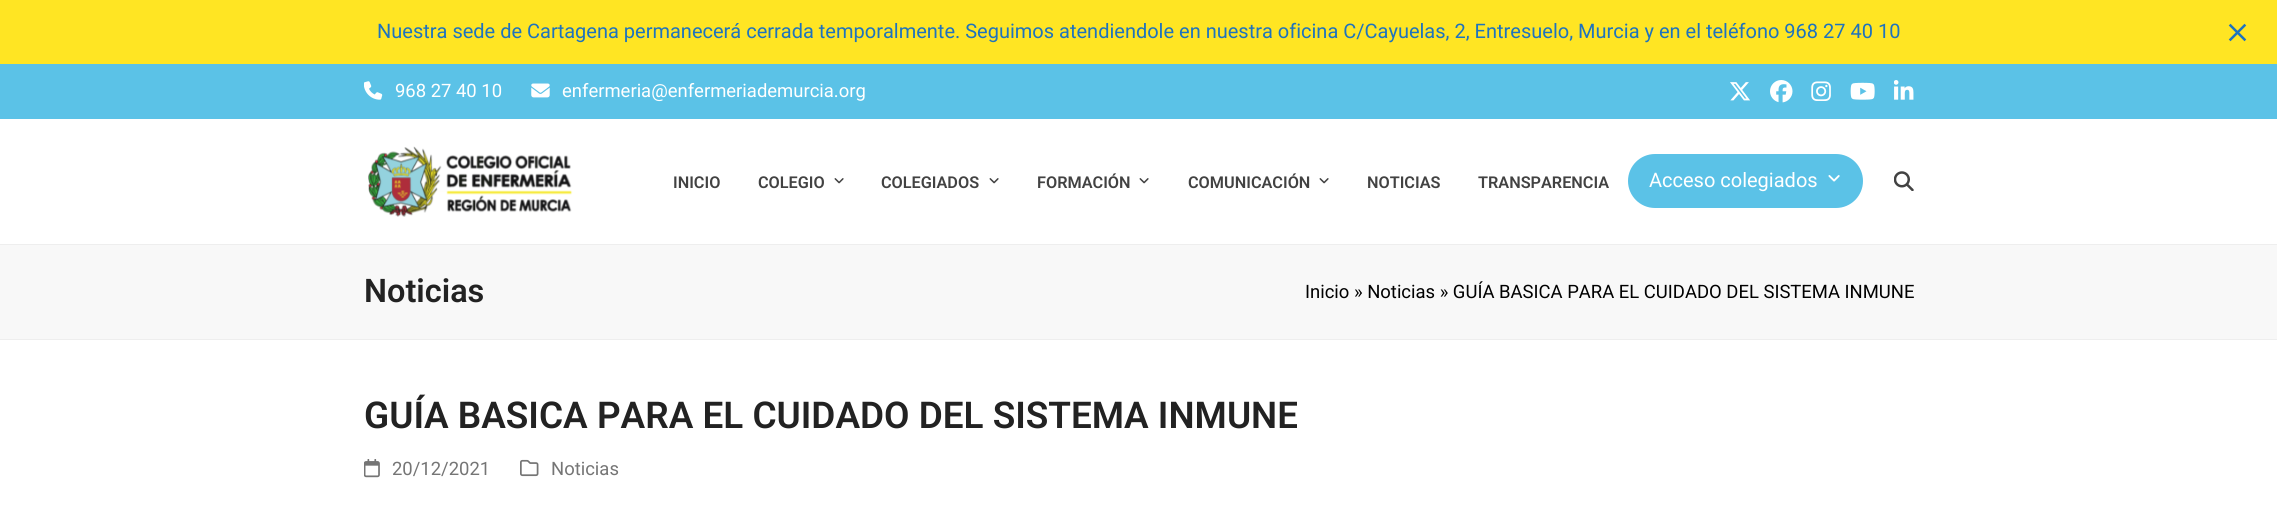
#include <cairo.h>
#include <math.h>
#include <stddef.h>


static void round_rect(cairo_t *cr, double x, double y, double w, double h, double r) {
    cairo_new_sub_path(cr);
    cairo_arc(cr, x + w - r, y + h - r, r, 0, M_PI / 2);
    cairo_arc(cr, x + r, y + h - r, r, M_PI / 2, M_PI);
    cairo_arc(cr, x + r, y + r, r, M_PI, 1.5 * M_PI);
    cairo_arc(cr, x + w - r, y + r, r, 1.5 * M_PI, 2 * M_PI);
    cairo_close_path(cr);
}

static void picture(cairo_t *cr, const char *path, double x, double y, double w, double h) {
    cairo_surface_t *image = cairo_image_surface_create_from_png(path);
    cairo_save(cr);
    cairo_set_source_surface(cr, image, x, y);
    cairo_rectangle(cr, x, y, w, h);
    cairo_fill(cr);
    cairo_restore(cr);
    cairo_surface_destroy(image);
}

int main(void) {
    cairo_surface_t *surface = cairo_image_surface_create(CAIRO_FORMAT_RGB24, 2277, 523);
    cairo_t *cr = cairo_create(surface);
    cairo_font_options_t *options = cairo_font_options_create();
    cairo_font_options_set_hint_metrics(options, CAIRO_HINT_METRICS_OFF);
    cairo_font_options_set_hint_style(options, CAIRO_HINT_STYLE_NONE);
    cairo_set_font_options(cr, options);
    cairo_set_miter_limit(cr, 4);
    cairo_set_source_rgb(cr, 1, 1, 1);
    cairo_paint(cr);
    cairo_set_source_rgb(cr, 1, 0.898, 0.137);
    cairo_rectangle(cr, 0, 0, 2277, 64);
    cairo_fill(cr);
    cairo_select_font_face(cr, "Roboto", CAIRO_FONT_SLANT_NORMAL, CAIRO_FONT_WEIGHT_NORMAL);
    cairo_set_font_size(cr, 20);
    cairo_set_source_rgb(cr, 0.118, 0.451, 0.745);
    cairo_move_to(cr, 377, 38);
    cairo_show_text(cr, "Nuestra sede de Cartagena permanecerá cerrada temporalmente. Seguimos atendiendole en nuestra oficina C/Cayuelas, 2, Entresuelo, Murcia y en el teléfono 968 27 40 10");
    picture(cr, "img1.png", 2228, 23, 19, 19);
    cairo_set_source_rgb(cr, 0.357, 0.761, 0.906);
    cairo_rectangle(cr, 0, 64, 2277, 55);
    cairo_fill(cr);
    picture(cr, "img2.png", 364, 81, 19, 19);
    cairo_set_font_size(cr, 18.45);
    cairo_set_source_rgb(cr, 1, 1, 1);
    cairo_move_to(cr, 395, 97);
    cairo_show_text(cr, "968 27 40 10");
    picture(cr, "img3.png", 531, 83, 19, 15);
    cairo_move_to(cr, 562, 97);
    cairo_show_text(cr, "enfermeria@enfermeriademurcia.org");
    picture(cr, "img4.png", 1730, 82, 20, 19);
    picture(cr, "img5.png", 1770, 80, 23, 23);
    picture(cr, "img6.png", 1811, 81, 20, 20);
    picture(cr, "img7.png", 1850, 82, 25, 18);
    picture(cr, "img8.png", 1894, 80, 20, 20);
    picture(cr, "img9.png", 368, 146, 205, 71);
    cairo_select_font_face(cr, "Roboto SemiBold", CAIRO_FONT_SLANT_NORMAL, CAIRO_FONT_WEIGHT_NORMAL);
    cairo_set_font_size(cr, 16.25);
    cairo_set_source_rgb(cr, 0.259, 0.259, 0.259);
    cairo_move_to(cr, 673, 188);
    cairo_show_text(cr, "INICIO");
    cairo_move_to(cr, 758, 188);
    cairo_show_text(cr, "COLEGIO");
    picture(cr, "img10.png", 834, 178, 10, 6);
    cairo_move_to(cr, 881, 188);
    cairo_show_text(cr, "COLEGIADOS");
    picture(cr, "img10.png", 989, 178, 10, 6);
    cairo_move_to(cr, 1037, 188);
    cairo_show_text(cr, "FORMACIÓN");
    picture(cr, "img10.png", 1139, 178, 10, 6);
    cairo_move_to(cr, 1188, 188);
    cairo_show_text(cr, "COMUNICACIÓN");
    picture(cr, "img10.png", 1319, 178, 10, 6);
    cairo_move_to(cr, 1367, 188);
    cairo_show_text(cr, "NOTICIAS");
    cairo_move_to(cr, 1478, 188);
    cairo_show_text(cr, "TRANSPARENCIA");
    cairo_set_source_rgb(cr, 0.357, 0.761, 0.906);
    round_rect(cr, 1628, 154, 235, 54, 27);
    cairo_fill(cr);
    cairo_select_font_face(cr, "Roboto", CAIRO_FONT_SLANT_NORMAL, CAIRO_FONT_WEIGHT_NORMAL);
    cairo_set_font_size(cr, 20);
    cairo_set_source_rgb(cr, 1, 1, 1);
    cairo_move_to(cr, 1649, 187);
    cairo_show_text(cr, "Acceso colegiados");
    picture(cr, "img11.png", 1828, 175, 12, 7);
    picture(cr, "img12.png", 1894, 171, 20, 20);
    cairo_set_source_rgb(cr, 0.969, 0.969, 0.969);
    cairo_rectangle(cr, 0, 245, 2277, 94);
    cairo_fill(cr);
    cairo_set_source_rgb(cr, 0.933, 0.933, 0.933);
    cairo_rectangle(cr, 0, 244, 2277, 1);
    cairo_fill(cr);
    cairo_rectangle(cr, 0, 339, 2277, 1);
    cairo_fill(cr);
    cairo_select_font_face(cr, "Roboto SemiBold", CAIRO_FONT_SLANT_NORMAL, CAIRO_FONT_WEIGHT_NORMAL);
    cairo_set_font_size(cr, 32.5);
    cairo_set_source_rgb(cr, 0.133, 0.133, 0.133);
    cairo_move_to(cr, 364, 302);
    cairo_show_text(cr, "Noticias");
    cairo_select_font_face(cr, "Roboto", CAIRO_FONT_SLANT_NORMAL, CAIRO_FONT_WEIGHT_NORMAL);
    cairo_set_font_size(cr, 18.45);
    cairo_set_source_rgb(cr, 0, 0, 0);
    cairo_move_to(cr, 1305, 298);
    cairo_show_text(cr, "Inicio » Noticias » GUÍA BASICA PARA EL CUIDADO DEL SISTEMA INMUNE");
    cairo_select_font_face(cr, "Roboto SemiBold", CAIRO_FONT_SLANT_NORMAL, CAIRO_FONT_WEIGHT_NORMAL);
    cairo_set_font_size(cr, 36.9);
    cairo_set_source_rgb(cr, 0.133, 0.133, 0.133);
    cairo_move_to(cr, 364, 428);
    cairo_show_text(cr, "GUÍA BASICA PARA EL CUIDADO DEL SISTEMA INMUNE");
    picture(cr, "img13.png", 364, 459, 16, 19);
    cairo_select_font_face(cr, "Roboto", CAIRO_FONT_SLANT_NORMAL, CAIRO_FONT_WEIGHT_NORMAL);
    cairo_set_font_size(cr, 18.45);
    cairo_set_source_rgb(cr, 0.459, 0.459, 0.459);
    cairo_move_to(cr, 392, 475);
    cairo_show_text(cr, "20/12/2021");
    picture(cr, "img14.png", 520, 459, 19, 18);
    cairo_move_to(cr, 551, 475);
    cairo_show_text(cr, "Noticias");
    cairo_surface_write_to_png(surface, "page.png");
    cairo_font_options_destroy(options);
    cairo_destroy(cr);
    cairo_surface_destroy(surface);
    return 0;
}
